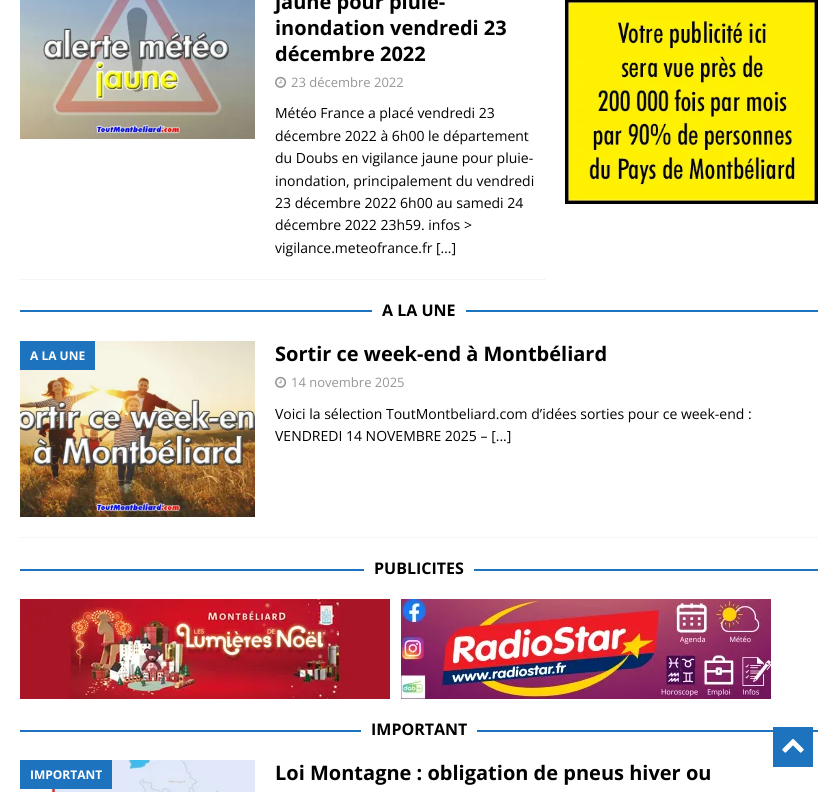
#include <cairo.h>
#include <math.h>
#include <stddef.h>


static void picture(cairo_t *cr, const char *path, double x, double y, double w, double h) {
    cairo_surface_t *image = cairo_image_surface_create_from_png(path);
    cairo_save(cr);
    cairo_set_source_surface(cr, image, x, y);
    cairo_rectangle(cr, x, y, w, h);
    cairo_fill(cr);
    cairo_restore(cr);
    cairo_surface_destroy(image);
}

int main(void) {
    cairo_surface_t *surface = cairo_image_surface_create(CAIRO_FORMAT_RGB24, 838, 792);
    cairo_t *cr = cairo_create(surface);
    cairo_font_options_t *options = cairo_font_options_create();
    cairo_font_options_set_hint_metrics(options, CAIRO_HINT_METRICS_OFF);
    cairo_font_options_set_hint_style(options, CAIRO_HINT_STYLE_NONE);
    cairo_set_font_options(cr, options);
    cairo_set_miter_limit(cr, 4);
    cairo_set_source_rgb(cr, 1, 1, 1);
    cairo_paint(cr);
    cairo_new_path(cr);
    cairo_move_to(cr, 20, 279.5);
    cairo_line_to(cr, 545, 279.5);
    cairo_set_source_rgb(cr, 0.922, 0.922, 0.922);
    cairo_set_line_width(cr, 1);
    cairo_set_dash(cr, (double[]){1, 1}, 2, 0);
    cairo_stroke(cr);
    picture(cr, "img1.png", 20, 0, 235, 139);
    cairo_select_font_face(cr, "Open Sans", CAIRO_FONT_SLANT_NORMAL, CAIRO_FONT_WEIGHT_BOLD);
    cairo_set_font_size(cr, 20);
    cairo_set_source_rgb(cr, 0, 0, 0);
    cairo_move_to(cr, 275, 9);
    cairo_show_text(cr, "jaune pour pluie-");
    cairo_move_to(cr, 275, 35);
    cairo_show_text(cr, "inondation vendredi 23");
    cairo_move_to(cr, 275, 61);
    cairo_show_text(cr, "décembre 2022");
    picture(cr, "img2.png", 275, 76, 12, 12);
    cairo_select_font_face(cr, "Open Sans", CAIRO_FONT_SLANT_NORMAL, CAIRO_FONT_WEIGHT_NORMAL);
    cairo_set_font_size(cr, 13);
    cairo_set_source_rgb(cr, 0.592, 0.592, 0.592);
    cairo_move_to(cr, 291, 87);
    cairo_show_text(cr, "23 décembre 2022");
    cairo_set_font_size(cr, 14);
    cairo_set_source_rgb(cr, 0, 0, 0);
    cairo_move_to(cr, 275, 118);
    cairo_show_text(cr, "Météo France a placé vendredi 23");
    cairo_move_to(cr, 275, 141);
    cairo_show_text(cr, "décembre 2022 à 6h00 le département");
    cairo_move_to(cr, 275, 163);
    cairo_show_text(cr, "du Doubs en vigilance jaune pour pluie-");
    cairo_move_to(cr, 275, 186);
    cairo_show_text(cr, "inondation, principalement du vendredi");
    cairo_move_to(cr, 275, 208);
    cairo_show_text(cr, "23 décembre 2022 6h00 au samedi 24");
    cairo_move_to(cr, 275, 230);
    cairo_show_text(cr, "décembre 2022 23h59. infos >");
    cairo_move_to(cr, 275, 253);
    cairo_show_text(cr, "vigilance.meteofrance.fr […]");
    picture(cr, "img3.png", 565, 0, 253, 204);
    cairo_set_source_rgb(cr, 0.118, 0.451, 0.745);
    cairo_rectangle(cr, 20, 310, 798, 2);
    cairo_fill(cr);
    cairo_set_source_rgb(cr, 1, 1, 1);
    cairo_rectangle(cr, 372, 310, 94, 2);
    cairo_fill(cr);
    cairo_select_font_face(cr, "Open Sans", CAIRO_FONT_SLANT_NORMAL, CAIRO_FONT_WEIGHT_BOLD);
    cairo_set_font_size(cr, 16);
    cairo_set_source_rgb(cr, 0, 0, 0);
    cairo_move_to(cr, 382, 316);
    cairo_show_text(cr, "A LA UNE");
    cairo_new_path(cr);
    cairo_move_to(cr, 20, 537.5);
    cairo_line_to(cr, 818, 537.5);
    cairo_set_source_rgb(cr, 0.922, 0.922, 0.922);
    cairo_stroke(cr);
    picture(cr, "img4.png", 20, 341, 235, 176);
    cairo_set_source_rgb(cr, 0.118, 0.451, 0.745);
    cairo_rectangle(cr, 20, 341, 75, 29);
    cairo_fill(cr);
    cairo_set_font_size(cr, 12);
    cairo_set_source_rgb(cr, 1, 1, 1);
    cairo_move_to(cr, 30, 360);
    cairo_show_text(cr, "A LA UNE");
    cairo_set_font_size(cr, 20);
    cairo_set_source_rgb(cr, 0, 0, 0);
    cairo_move_to(cr, 275, 361);
    cairo_show_text(cr, "Sortir ce week-end à Montbéliard");
    picture(cr, "img2.png", 275, 376, 12, 12);
    cairo_select_font_face(cr, "Open Sans", CAIRO_FONT_SLANT_NORMAL, CAIRO_FONT_WEIGHT_NORMAL);
    cairo_set_font_size(cr, 13);
    cairo_set_source_rgb(cr, 0.592, 0.592, 0.592);
    cairo_move_to(cr, 291, 387);
    cairo_show_text(cr, "14 novembre 2025");
    cairo_set_font_size(cr, 14);
    cairo_set_source_rgb(cr, 0, 0, 0);
    cairo_move_to(cr, 275, 419);
    cairo_show_text(cr, "Voici la sélection ToutMontbeliard.com d’idées sorties pour ce week-end :");
    cairo_move_to(cr, 275, 441);
    cairo_show_text(cr, "VENDREDI 14 NOVEMBRE 2025 – [...]");
    cairo_set_source_rgb(cr, 0.118, 0.451, 0.745);
    cairo_rectangle(cr, 20, 569, 798, 2);
    cairo_fill(cr);
    cairo_set_source_rgb(cr, 1, 1, 1);
    cairo_rectangle(cr, 364, 569, 110, 2);
    cairo_fill(cr);
    cairo_select_font_face(cr, "Open Sans", CAIRO_FONT_SLANT_NORMAL, CAIRO_FONT_WEIGHT_BOLD);
    cairo_set_font_size(cr, 16);
    cairo_set_source_rgb(cr, 0, 0, 0);
    cairo_move_to(cr, 374, 574);
    cairo_show_text(cr, "PUBLICITES");
    picture(cr, "img5.png", 20, 599, 370, 100);
    picture(cr, "img6.png", 401, 599, 370, 100);
    cairo_set_source_rgb(cr, 0.118, 0.451, 0.745);
    cairo_rectangle(cr, 20, 730, 798, 2);
    cairo_fill(cr);
    cairo_set_source_rgb(cr, 1, 1, 1);
    cairo_rectangle(cr, 361, 730, 116, 2);
    cairo_fill(cr);
    cairo_set_source_rgb(cr, 0, 0, 0);
    cairo_move_to(cr, 371, 735);
    cairo_show_text(cr, "IMPORTANT");
    picture(cr, "img7.png", 20, 760, 235, 32);
    cairo_set_source_rgb(cr, 0.118, 0.451, 0.745);
    cairo_rectangle(cr, 20, 760, 92, 29);
    cairo_fill(cr);
    cairo_set_font_size(cr, 12);
    cairo_set_source_rgb(cr, 1, 1, 1);
    cairo_move_to(cr, 30, 779);
    cairo_show_text(cr, "IMPORTANT");
    cairo_set_font_size(cr, 20);
    cairo_set_source_rgb(cr, 0, 0, 0);
    cairo_move_to(cr, 275, 780);
    cairo_show_text(cr, "Loi Montagne : obligation de pneus hiver ou");
    cairo_set_source_rgb(cr, 0.118, 0.451, 0.745);
    cairo_rectangle(cr, 773, 727, 40, 40);
    cairo_fill(cr);
    picture(cr, "img8.png", 782, 738, 22, 15);
    cairo_surface_write_to_png(surface, "page.png");
    cairo_font_options_destroy(options);
    cairo_destroy(cr);
    cairo_surface_destroy(surface);
    return 0;
}
